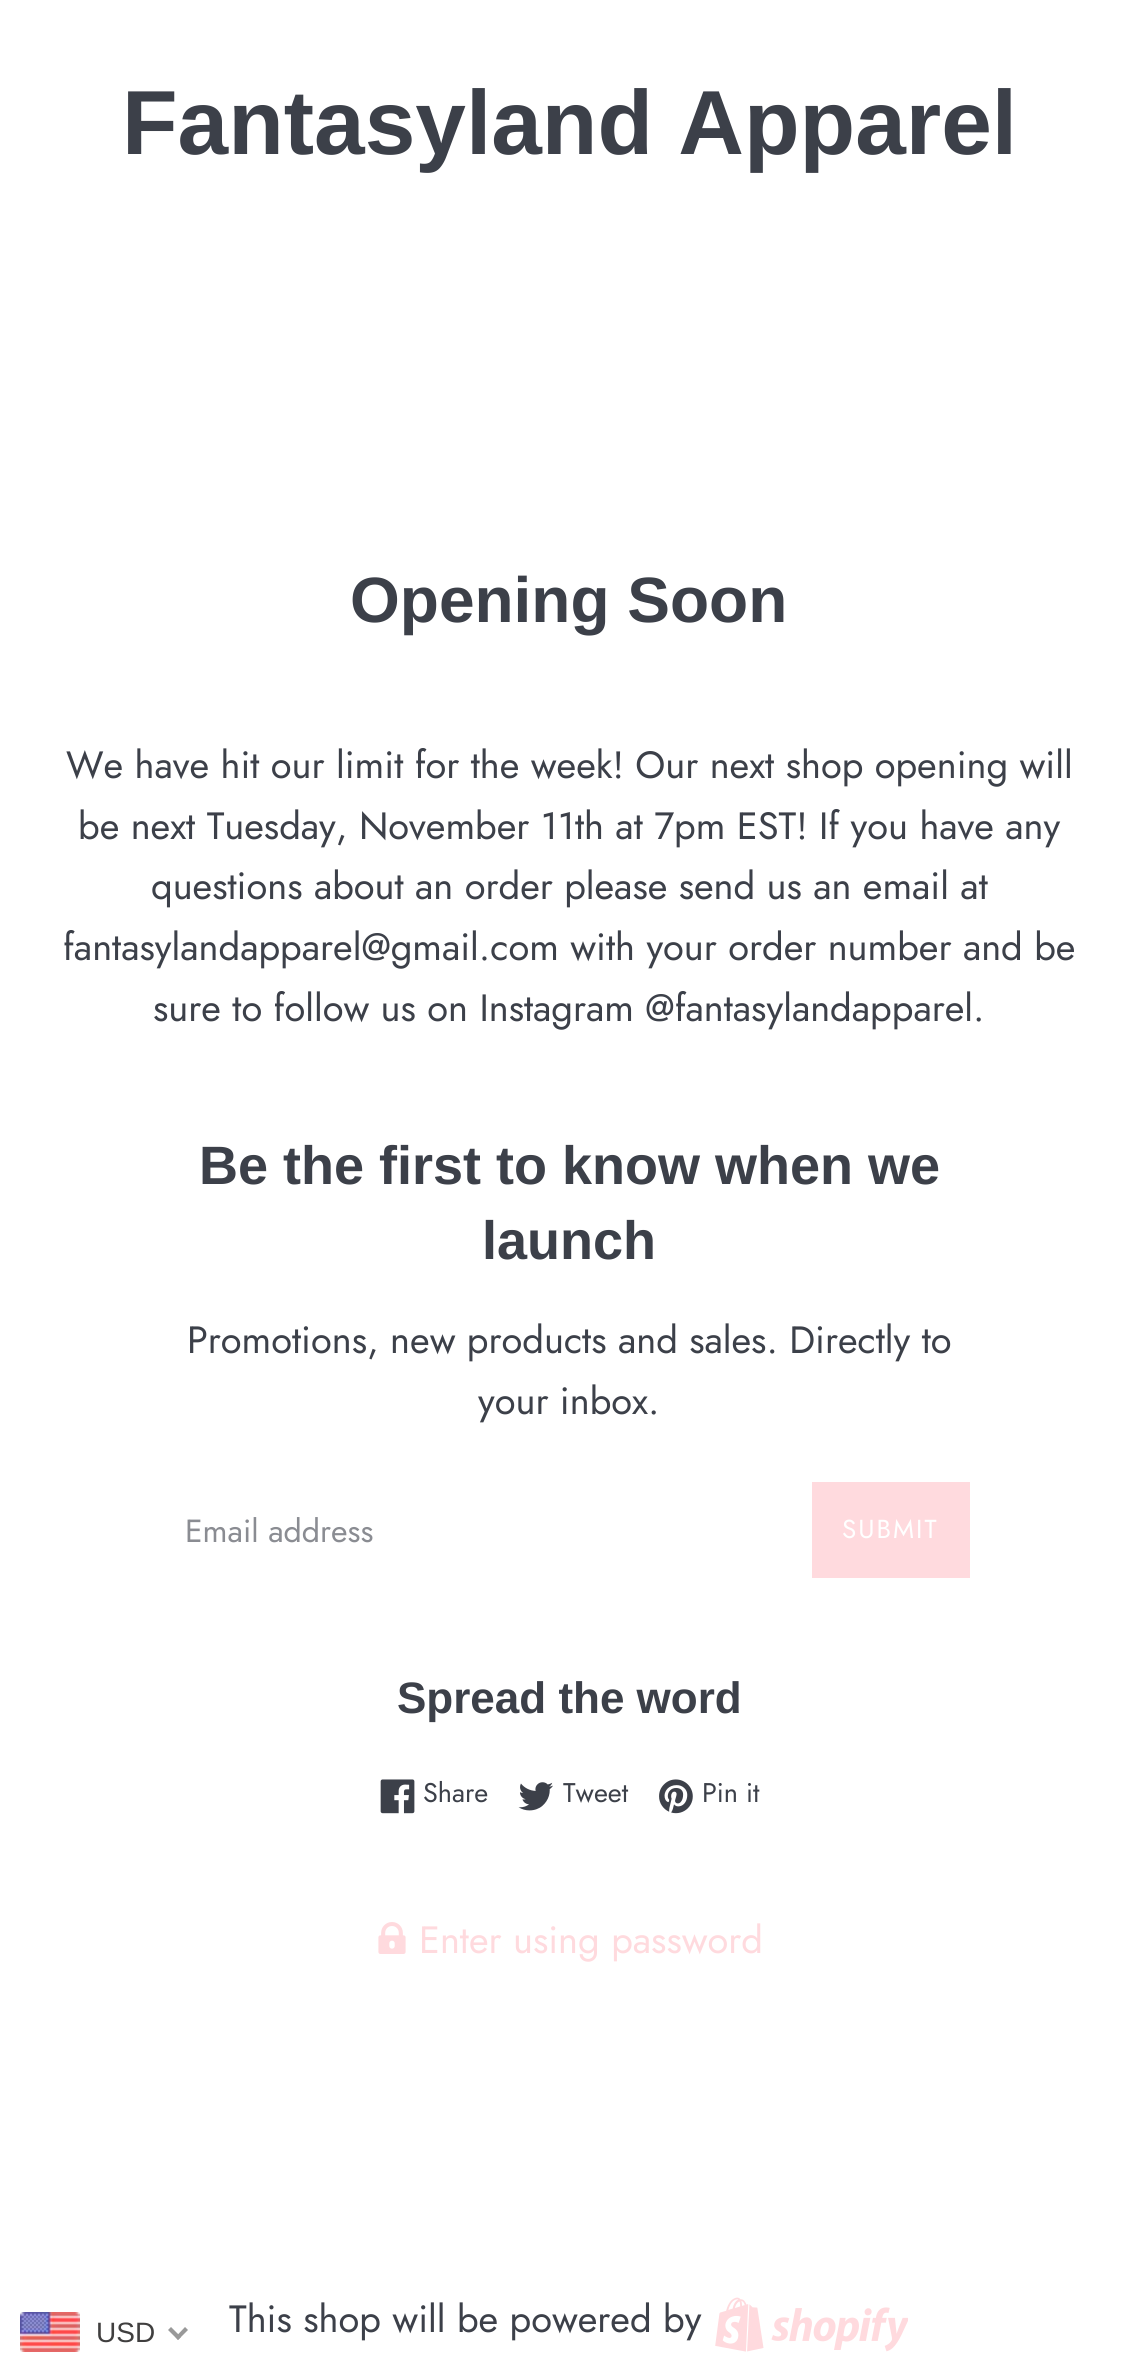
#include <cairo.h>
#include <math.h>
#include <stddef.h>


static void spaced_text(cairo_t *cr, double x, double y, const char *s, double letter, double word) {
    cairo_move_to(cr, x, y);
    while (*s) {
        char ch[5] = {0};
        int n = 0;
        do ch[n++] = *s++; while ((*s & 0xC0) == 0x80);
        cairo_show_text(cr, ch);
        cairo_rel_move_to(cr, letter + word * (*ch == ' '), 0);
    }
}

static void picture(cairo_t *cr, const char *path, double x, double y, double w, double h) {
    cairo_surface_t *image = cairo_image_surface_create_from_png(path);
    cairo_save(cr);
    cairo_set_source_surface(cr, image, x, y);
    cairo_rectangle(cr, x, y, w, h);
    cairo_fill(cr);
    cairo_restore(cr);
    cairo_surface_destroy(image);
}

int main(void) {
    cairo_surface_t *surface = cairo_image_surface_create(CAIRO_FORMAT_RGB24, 1138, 2372);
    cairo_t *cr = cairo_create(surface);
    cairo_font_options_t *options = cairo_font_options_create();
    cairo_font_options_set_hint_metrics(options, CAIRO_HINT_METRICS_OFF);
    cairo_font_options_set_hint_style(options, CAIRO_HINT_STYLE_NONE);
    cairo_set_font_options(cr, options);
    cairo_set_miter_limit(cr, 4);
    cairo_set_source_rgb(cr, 1, 1, 1);
    cairo_paint(cr);
    cairo_select_font_face(cr, "Arimo", CAIRO_FONT_SLANT_NORMAL, CAIRO_FONT_WEIGHT_BOLD);
    cairo_set_font_size(cr, 91);
    cairo_set_source_rgb(cr, 0.235, 0.251, 0.286);
    cairo_move_to(cr, 122, 154);
    cairo_show_text(cr, "Fantasyland Apparel");
    cairo_set_font_size(cr, 64);
    cairo_move_to(cr, 350, 622);
    cairo_show_text(cr, "Opening Soon");
    cairo_select_font_face(cr, "Jost", CAIRO_FONT_SLANT_NORMAL, CAIRO_FONT_WEIGHT_NORMAL);
    cairo_set_font_size(cr, 38);
    cairo_move_to(cr, 66, 778);
    cairo_show_text(cr, "We have hit our limit for the week! Our next shop opening will");
    cairo_move_to(cr, 78, 839);
    cairo_show_text(cr, "be next Tuesday, November 11th at 7pm EST! If you have any");
    cairo_move_to(cr, 151, 899);
    cairo_show_text(cr, "questions about an order please send us an email at");
    cairo_move_to(cr, 63, 960);
    cairo_show_text(cr, "fantasylandapparel@gmail.com with your order number and be");
    cairo_move_to(cr, 153, 1021);
    cairo_show_text(cr, "sure to follow us on Instagram @fantasylandapparel.");
    cairo_select_font_face(cr, "Arimo", CAIRO_FONT_SLANT_NORMAL, CAIRO_FONT_WEIGHT_BOLD);
    cairo_set_font_size(cr, 54);
    cairo_move_to(cr, 199, 1184);
    cairo_show_text(cr, "Be the first to know when we");
    cairo_move_to(cr, 482, 1259);
    cairo_show_text(cr, "launch");
    cairo_select_font_face(cr, "Jost", CAIRO_FONT_SLANT_NORMAL, CAIRO_FONT_WEIGHT_NORMAL);
    cairo_set_font_size(cr, 38);
    cairo_move_to(cr, 187, 1353);
    cairo_show_text(cr, "Promotions, new products and sales. Directly to");
    cairo_move_to(cr, 478, 1414);
    cairo_show_text(cr, "your inbox.");
    cairo_set_font_size(cr, 32);
    cairo_set_source_rgb(cr, 0.541, 0.549, 0.573);
    cairo_move_to(cr, 185, 1542);
    cairo_show_text(cr, "Email address");
    cairo_set_source_rgb(cr, 1, 0.855, 0.871);
    cairo_rectangle(cr, 812, 1482, 158, 96);
    cairo_fill(cr);
    cairo_set_font_size(cr, 26);
    cairo_set_source_rgb(cr, 1, 1, 1);
    spaced_text(cr, 842, 1538, "SUBMIT", 2, 0);
    cairo_select_font_face(cr, "Arimo", CAIRO_FONT_SLANT_NORMAL, CAIRO_FONT_WEIGHT_BOLD);
    cairo_set_font_size(cr, 44);
    cairo_set_source_rgb(cr, 0.235, 0.251, 0.286);
    cairo_move_to(cr, 397, 1713);
    cairo_show_text(cr, "Spread the word");
    picture(cr, "img1.png", 380, 1779, 35, 35);
    cairo_select_font_face(cr, "Jost", CAIRO_FONT_SLANT_NORMAL, CAIRO_FONT_WEIGHT_NORMAL);
    cairo_set_font_size(cr, 27);
    cairo_move_to(cr, 423, 1802);
    cairo_show_text(cr, "Share");
    picture(cr, "img2.png", 518, 1782, 35, 29);
    cairo_move_to(cr, 563, 1802);
    cairo_show_text(cr, "Tweet");
    picture(cr, "img3.png", 659, 1779, 34, 35);
    cairo_move_to(cr, 702, 1802);
    cairo_show_text(cr, "Pin it");
    picture(cr, "img4.png", 378, 1922, 28, 32);
    cairo_set_font_size(cr, 38);
    cairo_set_source_rgb(cr, 1, 0.855, 0.871);
    cairo_move_to(cr, 419, 1953);
    cairo_show_text(cr, "Enter using password");
    cairo_set_source_rgb(cr, 0.235, 0.251, 0.286);
    cairo_move_to(cr, 229, 2332);
    cairo_show_text(cr, "This shop will be powered by");
    picture(cr, "img5.png", 715, 2297, 193, 55);
    picture(cr, "img6.png", 20, 2312, 60, 40);
    cairo_select_font_face(cr, "Liberation Sans", CAIRO_FONT_SLANT_NORMAL, CAIRO_FONT_WEIGHT_NORMAL);
    cairo_set_font_size(cr, 28);
    cairo_set_source_rgb(cr, 0.251, 0.247, 0.247);
    cairo_move_to(cr, 96, 2342);
    cairo_show_text(cr, "USD");
    cairo_set_source_rgb(cr, 0.6, 0.6, 0.6);
    cairo_new_path(cr);
    cairo_move_to(cr, 185, 2327);
    cairo_line_to(cr, 188, 2330);
    cairo_line_to(cr, 178, 2340);
    cairo_line_to(cr, 175.5, 2337);
    cairo_close_path(cr);
    cairo_fill(cr);
    cairo_new_path(cr);
    cairo_move_to(cr, 171, 2327);
    cairo_line_to(cr, 181, 2337);
    cairo_line_to(cr, 178, 2340);
    cairo_line_to(cr, 168, 2330);
    cairo_close_path(cr);
    cairo_fill(cr);
    cairo_surface_write_to_png(surface, "page.png");
    cairo_font_options_destroy(options);
    cairo_destroy(cr);
    cairo_surface_destroy(surface);
    return 0;
}
